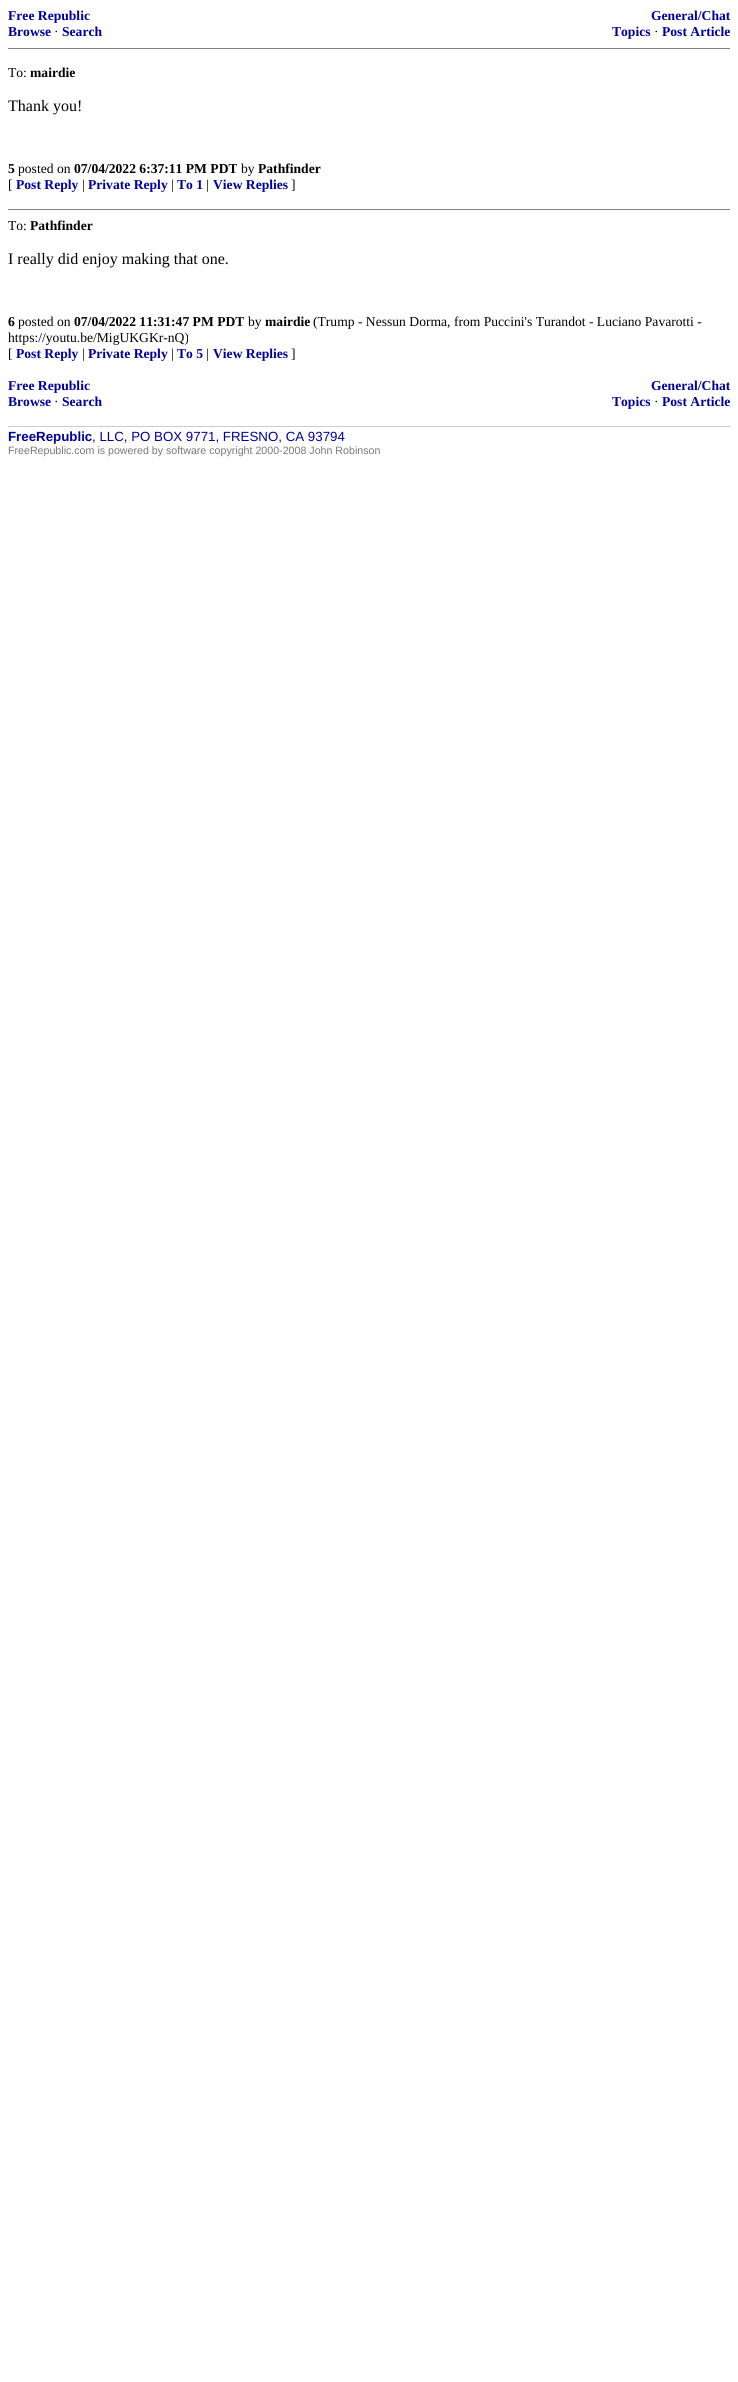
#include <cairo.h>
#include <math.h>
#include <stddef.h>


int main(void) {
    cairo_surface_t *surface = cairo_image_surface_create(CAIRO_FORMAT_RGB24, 738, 2382);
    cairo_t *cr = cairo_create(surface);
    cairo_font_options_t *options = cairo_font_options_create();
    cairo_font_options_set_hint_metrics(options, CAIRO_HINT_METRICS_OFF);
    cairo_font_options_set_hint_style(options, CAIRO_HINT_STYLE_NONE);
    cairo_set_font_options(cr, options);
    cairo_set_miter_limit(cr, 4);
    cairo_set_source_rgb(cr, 1, 1, 1);
    cairo_paint(cr);
    cairo_select_font_face(cr, "Liberation Serif", CAIRO_FONT_SLANT_NORMAL, CAIRO_FONT_WEIGHT_BOLD);
    cairo_set_font_size(cr, 13.6);
    cairo_set_source_rgb(cr, 0, 0, 0.6);
    cairo_move_to(cr, 8, 20);
    cairo_show_text(cr, "Free Republic");
    cairo_move_to(cr, 8, 36);
    cairo_show_text(cr, "Browse");
    cairo_select_font_face(cr, "Liberation Serif", CAIRO_FONT_SLANT_NORMAL, CAIRO_FONT_WEIGHT_NORMAL);
    cairo_set_source_rgb(cr, 0, 0, 0);
    cairo_move_to(cr, 54, 36);
    cairo_show_text(cr, "·");
    cairo_select_font_face(cr, "Liberation Serif", CAIRO_FONT_SLANT_NORMAL, CAIRO_FONT_WEIGHT_BOLD);
    cairo_set_source_rgb(cr, 0, 0, 0.6);
    cairo_move_to(cr, 62, 36);
    cairo_show_text(cr, "Search");
    cairo_move_to(cr, 651, 20);
    cairo_show_text(cr, "General/Chat");
    cairo_move_to(cr, 612, 36);
    cairo_show_text(cr, "Topics");
    cairo_select_font_face(cr, "Liberation Serif", CAIRO_FONT_SLANT_NORMAL, CAIRO_FONT_WEIGHT_NORMAL);
    cairo_set_source_rgb(cr, 0, 0, 0);
    cairo_move_to(cr, 654, 36);
    cairo_show_text(cr, "·");
    cairo_select_font_face(cr, "Liberation Serif", CAIRO_FONT_SLANT_NORMAL, CAIRO_FONT_WEIGHT_BOLD);
    cairo_set_source_rgb(cr, 0, 0, 0.6);
    cairo_move_to(cr, 662, 36);
    cairo_show_text(cr, "Post Article");
    cairo_set_source_rgb(cr, 0.502, 0.502, 0.502);
    cairo_rectangle(cr, 8, 48, 722, 1);
    cairo_fill(cr);
    cairo_select_font_face(cr, "Liberation Serif", CAIRO_FONT_SLANT_NORMAL, CAIRO_FONT_WEIGHT_NORMAL);
    cairo_set_source_rgb(cr, 0, 0, 0);
    cairo_move_to(cr, 8, 77);
    cairo_show_text(cr, "To:");
    cairo_select_font_face(cr, "Liberation Serif", CAIRO_FONT_SLANT_NORMAL, CAIRO_FONT_WEIGHT_BOLD);
    cairo_move_to(cr, 30, 77);
    cairo_show_text(cr, "mairdie");
    cairo_select_font_face(cr, "Liberation Serif", CAIRO_FONT_SLANT_NORMAL, CAIRO_FONT_WEIGHT_NORMAL);
    cairo_set_font_size(cr, 16);
    cairo_move_to(cr, 8, 111);
    cairo_show_text(cr, "Thank you!");
    cairo_select_font_face(cr, "Liberation Serif", CAIRO_FONT_SLANT_NORMAL, CAIRO_FONT_WEIGHT_BOLD);
    cairo_set_font_size(cr, 13.6);
    cairo_move_to(cr, 8, 173);
    cairo_show_text(cr, "5");
    cairo_select_font_face(cr, "Liberation Serif", CAIRO_FONT_SLANT_NORMAL, CAIRO_FONT_WEIGHT_NORMAL);
    cairo_move_to(cr, 18, 173);
    cairo_show_text(cr, "posted on");
    cairo_select_font_face(cr, "Liberation Serif", CAIRO_FONT_SLANT_NORMAL, CAIRO_FONT_WEIGHT_BOLD);
    cairo_move_to(cr, 74, 173);
    cairo_show_text(cr, "07/04/2022 6:37:11 PM PDT");
    cairo_select_font_face(cr, "Liberation Serif", CAIRO_FONT_SLANT_NORMAL, CAIRO_FONT_WEIGHT_NORMAL);
    cairo_move_to(cr, 241, 173);
    cairo_show_text(cr, "by");
    cairo_select_font_face(cr, "Liberation Serif", CAIRO_FONT_SLANT_NORMAL, CAIRO_FONT_WEIGHT_BOLD);
    cairo_move_to(cr, 258, 173);
    cairo_show_text(cr, "Pathfinder");
    cairo_select_font_face(cr, "Liberation Serif", CAIRO_FONT_SLANT_NORMAL, CAIRO_FONT_WEIGHT_NORMAL);
    cairo_move_to(cr, 8, 189);
    cairo_show_text(cr, "[");
    cairo_select_font_face(cr, "Liberation Serif", CAIRO_FONT_SLANT_NORMAL, CAIRO_FONT_WEIGHT_BOLD);
    cairo_set_source_rgb(cr, 0, 0, 0.6);
    cairo_move_to(cr, 16, 189);
    cairo_show_text(cr, "Post Reply");
    cairo_select_font_face(cr, "Liberation Serif", CAIRO_FONT_SLANT_NORMAL, CAIRO_FONT_WEIGHT_NORMAL);
    cairo_set_source_rgb(cr, 0, 0, 0);
    cairo_move_to(cr, 82, 189);
    cairo_show_text(cr, "|");
    cairo_select_font_face(cr, "Liberation Serif", CAIRO_FONT_SLANT_NORMAL, CAIRO_FONT_WEIGHT_BOLD);
    cairo_set_source_rgb(cr, 0, 0, 0.6);
    cairo_move_to(cr, 88, 189);
    cairo_show_text(cr, "Private Reply");
    cairo_select_font_face(cr, "Liberation Serif", CAIRO_FONT_SLANT_NORMAL, CAIRO_FONT_WEIGHT_NORMAL);
    cairo_set_source_rgb(cr, 0, 0, 0);
    cairo_move_to(cr, 171, 189);
    cairo_show_text(cr, "|");
    cairo_select_font_face(cr, "Liberation Serif", CAIRO_FONT_SLANT_NORMAL, CAIRO_FONT_WEIGHT_BOLD);
    cairo_set_source_rgb(cr, 0, 0, 0.6);
    cairo_move_to(cr, 177, 189);
    cairo_show_text(cr, "To 1");
    cairo_select_font_face(cr, "Liberation Serif", CAIRO_FONT_SLANT_NORMAL, CAIRO_FONT_WEIGHT_NORMAL);
    cairo_set_source_rgb(cr, 0, 0, 0);
    cairo_move_to(cr, 206, 189);
    cairo_show_text(cr, "|");
    cairo_select_font_face(cr, "Liberation Serif", CAIRO_FONT_SLANT_NORMAL, CAIRO_FONT_WEIGHT_BOLD);
    cairo_set_source_rgb(cr, 0, 0, 0.6);
    cairo_move_to(cr, 213, 189);
    cairo_show_text(cr, "View Replies");
    cairo_select_font_face(cr, "Liberation Serif", CAIRO_FONT_SLANT_NORMAL, CAIRO_FONT_WEIGHT_NORMAL);
    cairo_set_source_rgb(cr, 0, 0, 0);
    cairo_move_to(cr, 291, 189);
    cairo_show_text(cr, "]");
    cairo_set_source_rgb(cr, 0.502, 0.502, 0.502);
    cairo_rectangle(cr, 8, 209, 722, 1);
    cairo_fill(cr);
    cairo_set_source_rgb(cr, 0, 0, 0);
    cairo_move_to(cr, 8, 230);
    cairo_show_text(cr, "To:");
    cairo_select_font_face(cr, "Liberation Serif", CAIRO_FONT_SLANT_NORMAL, CAIRO_FONT_WEIGHT_BOLD);
    cairo_move_to(cr, 30, 230);
    cairo_show_text(cr, "Pathfinder");
    cairo_select_font_face(cr, "Liberation Serif", CAIRO_FONT_SLANT_NORMAL, CAIRO_FONT_WEIGHT_NORMAL);
    cairo_set_font_size(cr, 16);
    cairo_move_to(cr, 8, 264);
    cairo_show_text(cr, "I really did enjoy making that one.");
    cairo_select_font_face(cr, "Liberation Serif", CAIRO_FONT_SLANT_NORMAL, CAIRO_FONT_WEIGHT_BOLD);
    cairo_set_font_size(cr, 13.6);
    cairo_move_to(cr, 8, 326);
    cairo_show_text(cr, "6");
    cairo_select_font_face(cr, "Liberation Serif", CAIRO_FONT_SLANT_NORMAL, CAIRO_FONT_WEIGHT_NORMAL);
    cairo_move_to(cr, 18, 326);
    cairo_show_text(cr, "posted on");
    cairo_select_font_face(cr, "Liberation Serif", CAIRO_FONT_SLANT_NORMAL, CAIRO_FONT_WEIGHT_BOLD);
    cairo_move_to(cr, 74, 326);
    cairo_show_text(cr, "07/04/2022 11:31:47 PM PDT");
    cairo_select_font_face(cr, "Liberation Serif", CAIRO_FONT_SLANT_NORMAL, CAIRO_FONT_WEIGHT_NORMAL);
    cairo_move_to(cr, 248, 326);
    cairo_show_text(cr, "by");
    cairo_select_font_face(cr, "Liberation Serif", CAIRO_FONT_SLANT_NORMAL, CAIRO_FONT_WEIGHT_BOLD);
    cairo_move_to(cr, 265, 326);
    cairo_show_text(cr, "mairdie");
    cairo_select_font_face(cr, "Liberation Serif", CAIRO_FONT_SLANT_NORMAL, CAIRO_FONT_WEIGHT_NORMAL);
    cairo_move_to(cr, 313, 326);
    cairo_show_text(cr, "(Trump - Nessun Dorma, from Puccini's Turandot - Luciano Pavarotti -");
    cairo_move_to(cr, 8, 342);
    cairo_show_text(cr, "https://youtu.be/MigUKGKr-nQ)");
    cairo_move_to(cr, 8, 358);
    cairo_show_text(cr, "[");
    cairo_select_font_face(cr, "Liberation Serif", CAIRO_FONT_SLANT_NORMAL, CAIRO_FONT_WEIGHT_BOLD);
    cairo_set_source_rgb(cr, 0, 0, 0.6);
    cairo_move_to(cr, 16, 358);
    cairo_show_text(cr, "Post Reply");
    cairo_select_font_face(cr, "Liberation Serif", CAIRO_FONT_SLANT_NORMAL, CAIRO_FONT_WEIGHT_NORMAL);
    cairo_set_source_rgb(cr, 0, 0, 0);
    cairo_move_to(cr, 82, 358);
    cairo_show_text(cr, "|");
    cairo_select_font_face(cr, "Liberation Serif", CAIRO_FONT_SLANT_NORMAL, CAIRO_FONT_WEIGHT_BOLD);
    cairo_set_source_rgb(cr, 0, 0, 0.6);
    cairo_move_to(cr, 88, 358);
    cairo_show_text(cr, "Private Reply");
    cairo_select_font_face(cr, "Liberation Serif", CAIRO_FONT_SLANT_NORMAL, CAIRO_FONT_WEIGHT_NORMAL);
    cairo_set_source_rgb(cr, 0, 0, 0);
    cairo_move_to(cr, 171, 358);
    cairo_show_text(cr, "|");
    cairo_select_font_face(cr, "Liberation Serif", CAIRO_FONT_SLANT_NORMAL, CAIRO_FONT_WEIGHT_BOLD);
    cairo_set_source_rgb(cr, 0, 0, 0.6);
    cairo_move_to(cr, 177, 358);
    cairo_show_text(cr, "To 5");
    cairo_select_font_face(cr, "Liberation Serif", CAIRO_FONT_SLANT_NORMAL, CAIRO_FONT_WEIGHT_NORMAL);
    cairo_set_source_rgb(cr, 0, 0, 0);
    cairo_move_to(cr, 206, 358);
    cairo_show_text(cr, "|");
    cairo_select_font_face(cr, "Liberation Serif", CAIRO_FONT_SLANT_NORMAL, CAIRO_FONT_WEIGHT_BOLD);
    cairo_set_source_rgb(cr, 0, 0, 0.6);
    cairo_move_to(cr, 213, 358);
    cairo_show_text(cr, "View Replies");
    cairo_select_font_face(cr, "Liberation Serif", CAIRO_FONT_SLANT_NORMAL, CAIRO_FONT_WEIGHT_NORMAL);
    cairo_set_source_rgb(cr, 0, 0, 0);
    cairo_move_to(cr, 291, 358);
    cairo_show_text(cr, "]");
    cairo_select_font_face(cr, "Liberation Serif", CAIRO_FONT_SLANT_NORMAL, CAIRO_FONT_WEIGHT_BOLD);
    cairo_set_source_rgb(cr, 0, 0, 0.6);
    cairo_move_to(cr, 8, 390);
    cairo_show_text(cr, "Free Republic");
    cairo_move_to(cr, 8, 406);
    cairo_show_text(cr, "Browse");
    cairo_select_font_face(cr, "Liberation Serif", CAIRO_FONT_SLANT_NORMAL, CAIRO_FONT_WEIGHT_NORMAL);
    cairo_set_source_rgb(cr, 0, 0, 0);
    cairo_move_to(cr, 54, 406);
    cairo_show_text(cr, "·");
    cairo_select_font_face(cr, "Liberation Serif", CAIRO_FONT_SLANT_NORMAL, CAIRO_FONT_WEIGHT_BOLD);
    cairo_set_source_rgb(cr, 0, 0, 0.6);
    cairo_move_to(cr, 62, 406);
    cairo_show_text(cr, "Search");
    cairo_move_to(cr, 651, 390);
    cairo_show_text(cr, "General/Chat");
    cairo_move_to(cr, 612, 406);
    cairo_show_text(cr, "Topics");
    cairo_select_font_face(cr, "Liberation Serif", CAIRO_FONT_SLANT_NORMAL, CAIRO_FONT_WEIGHT_NORMAL);
    cairo_set_source_rgb(cr, 0, 0, 0);
    cairo_move_to(cr, 654, 406);
    cairo_show_text(cr, "·");
    cairo_select_font_face(cr, "Liberation Serif", CAIRO_FONT_SLANT_NORMAL, CAIRO_FONT_WEIGHT_BOLD);
    cairo_set_source_rgb(cr, 0, 0, 0.6);
    cairo_move_to(cr, 662, 406);
    cairo_show_text(cr, "Post Article");
    cairo_set_source_rgb(cr, 0.8, 0.8, 0.8);
    cairo_rectangle(cr, 8, 426, 722, 1);
    cairo_fill(cr);
    cairo_select_font_face(cr, "Liberation Sans", CAIRO_FONT_SLANT_NORMAL, CAIRO_FONT_WEIGHT_BOLD);
    cairo_set_font_size(cr, 13.3);
    cairo_set_source_rgb(cr, 0, 0, 0.6);
    cairo_move_to(cr, 8, 441);
    cairo_show_text(cr, "FreeRepublic");
    cairo_select_font_face(cr, "Liberation Sans", CAIRO_FONT_SLANT_NORMAL, CAIRO_FONT_WEIGHT_NORMAL);
    cairo_move_to(cr, 92, 441);
    cairo_show_text(cr, ", LLC, PO BOX 9771, FRESNO, CA 93794");
    cairo_set_font_size(cr, 10.65);
    cairo_set_source_rgb(cr, 0.467, 0.467, 0.467);
    cairo_move_to(cr, 8, 454);
    cairo_show_text(cr, "FreeRepublic.com is powered by software copyright 2000-2008 John Robinson");
    cairo_surface_write_to_png(surface, "page.png");
    cairo_font_options_destroy(options);
    cairo_destroy(cr);
    cairo_surface_destroy(surface);
    return 0;
}
